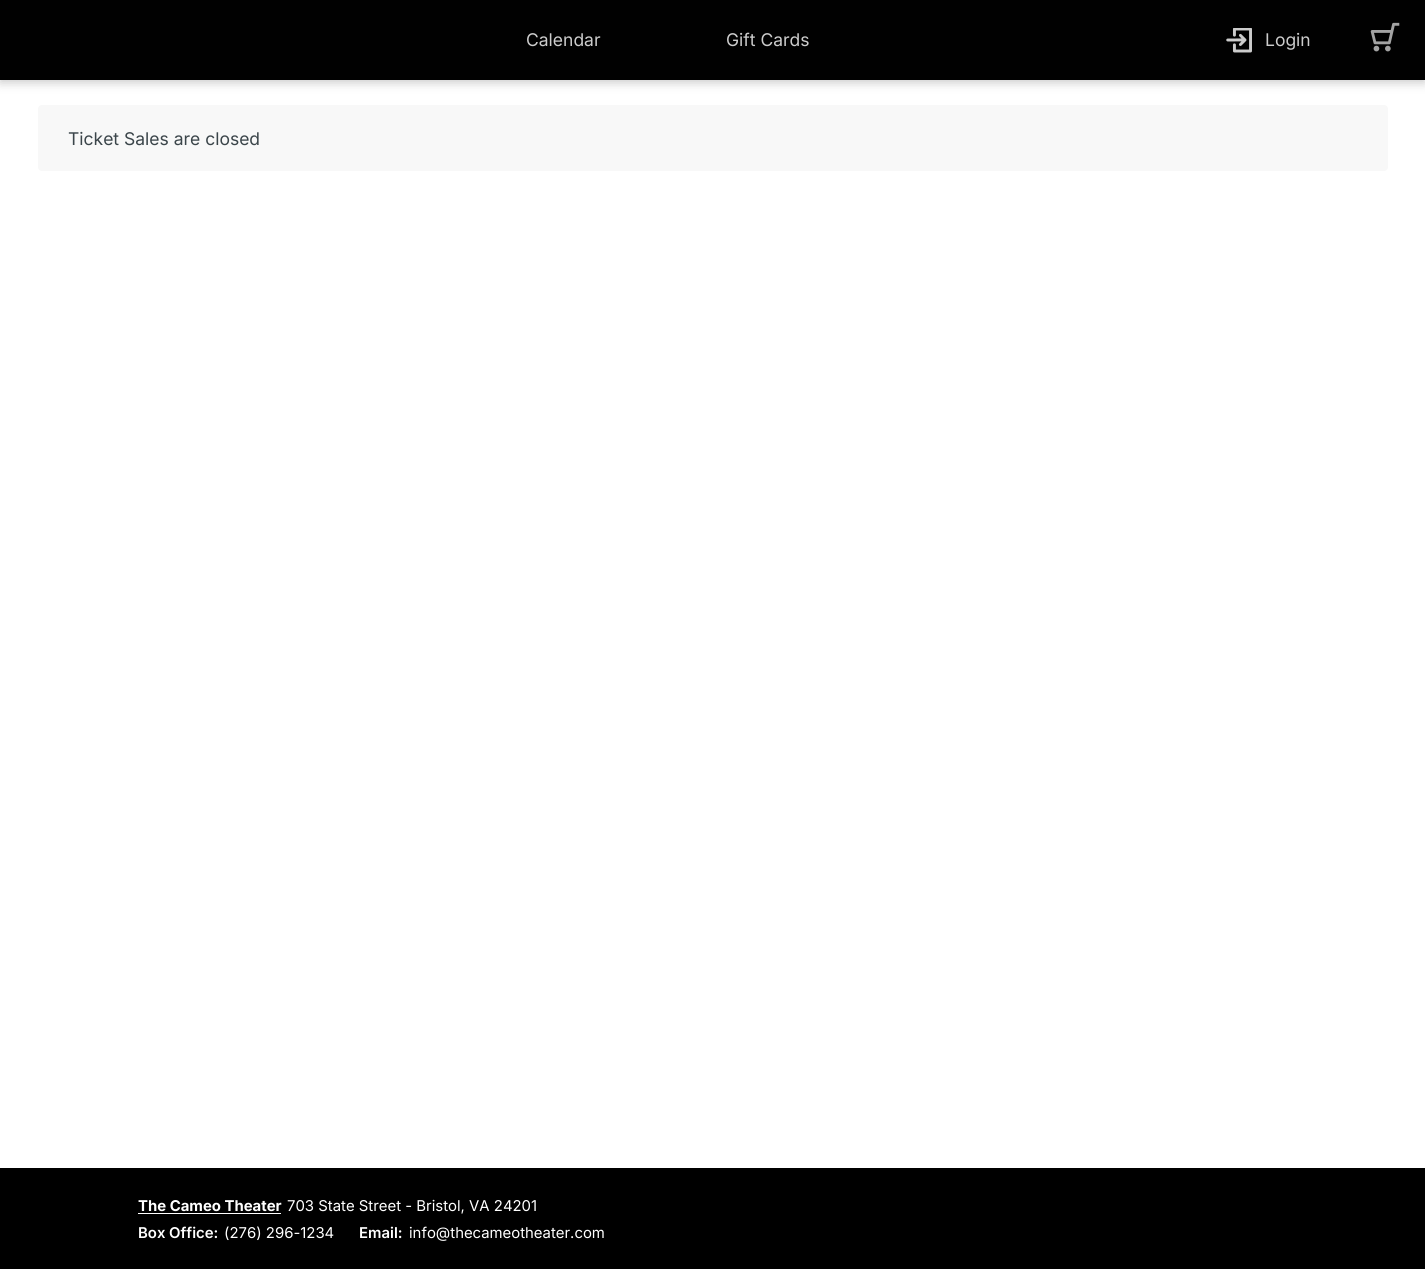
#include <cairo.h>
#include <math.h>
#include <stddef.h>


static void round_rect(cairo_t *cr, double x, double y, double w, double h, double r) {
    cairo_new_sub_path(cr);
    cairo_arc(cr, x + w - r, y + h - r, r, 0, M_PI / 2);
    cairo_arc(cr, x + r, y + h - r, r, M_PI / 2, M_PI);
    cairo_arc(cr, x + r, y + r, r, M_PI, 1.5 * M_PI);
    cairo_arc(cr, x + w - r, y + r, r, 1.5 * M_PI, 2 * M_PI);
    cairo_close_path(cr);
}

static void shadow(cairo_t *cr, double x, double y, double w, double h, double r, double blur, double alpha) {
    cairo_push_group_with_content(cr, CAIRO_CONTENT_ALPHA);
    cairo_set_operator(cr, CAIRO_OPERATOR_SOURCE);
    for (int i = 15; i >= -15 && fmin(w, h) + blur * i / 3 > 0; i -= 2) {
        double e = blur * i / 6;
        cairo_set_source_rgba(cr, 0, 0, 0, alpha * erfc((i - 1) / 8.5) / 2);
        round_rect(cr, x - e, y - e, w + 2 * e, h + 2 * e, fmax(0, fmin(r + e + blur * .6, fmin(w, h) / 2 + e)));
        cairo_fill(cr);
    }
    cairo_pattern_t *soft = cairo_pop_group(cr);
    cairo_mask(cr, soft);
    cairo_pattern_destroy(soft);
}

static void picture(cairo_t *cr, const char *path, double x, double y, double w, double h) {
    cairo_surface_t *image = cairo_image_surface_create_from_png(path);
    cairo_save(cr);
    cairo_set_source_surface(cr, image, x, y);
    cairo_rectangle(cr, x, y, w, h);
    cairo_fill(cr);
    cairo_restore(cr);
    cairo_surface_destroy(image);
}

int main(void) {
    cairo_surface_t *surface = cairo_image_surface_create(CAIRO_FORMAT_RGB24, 1425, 1269);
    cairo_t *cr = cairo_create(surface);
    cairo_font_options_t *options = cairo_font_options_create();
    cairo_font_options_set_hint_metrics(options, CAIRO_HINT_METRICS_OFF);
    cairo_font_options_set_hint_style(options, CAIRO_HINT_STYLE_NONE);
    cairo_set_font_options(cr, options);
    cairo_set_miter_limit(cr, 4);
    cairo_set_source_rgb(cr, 1, 1, 1);
    cairo_paint(cr);
    cairo_set_source_rgb(cr, 0, 0, 0);
    shadow(cr, 0, 3, 1425, 80, 0, 5, 0.2);
    cairo_set_source_rgb(cr, 0.004, 0.004, 0.004);
    cairo_rectangle(cr, 0, 0, 1425, 80);
    cairo_fill(cr);
    cairo_select_font_face(cr, "Inter", CAIRO_FONT_SLANT_NORMAL, CAIRO_FONT_WEIGHT_NORMAL);
    cairo_set_font_size(cr, 17.5);
    cairo_set_source_rgb(cr, 0.8, 0.8, 0.8);
    cairo_move_to(cr, 526, 46);
    cairo_show_text(cr, "Calendar");
    cairo_move_to(cr, 726, 46);
    cairo_show_text(cr, "Gift Cards");
    picture(cr, "img1.png", 1226, 28, 26, 25);
    cairo_move_to(cr, 1265, 46);
    cairo_show_text(cr, "Login");
    picture(cr, "img2.png", 1370, 22, 30, 30);
    cairo_set_source_rgb(cr, 0.969, 0.969, 0.969);
    round_rect(cr, 38, 105, 1350, 66, 4);
    cairo_fill(cr);
    cairo_set_source_rgb(cr, 0.231, 0.271, 0.29);
    cairo_move_to(cr, 68, 145);
    cairo_show_text(cr, "Ticket Sales are closed");
    cairo_set_source_rgb(cr, 0, 0, 0);
    cairo_rectangle(cr, 0, 1168, 1425, 101);
    cairo_fill(cr);
    cairo_select_font_face(cr, "Inter", CAIRO_FONT_SLANT_NORMAL, CAIRO_FONT_WEIGHT_BOLD);
    cairo_set_font_size(cr, 14.9);
    cairo_set_source_rgb(cr, 1, 1, 1);
    cairo_move_to(cr, 138, 1211);
    cairo_show_text(cr, "The Cameo Theater");
    cairo_rectangle(cr, 138, 1213, 143, 1);
    cairo_fill(cr);
    cairo_select_font_face(cr, "Inter", CAIRO_FONT_SLANT_NORMAL, CAIRO_FONT_WEIGHT_NORMAL);
    cairo_move_to(cr, 287, 1211);
    cairo_show_text(cr, "703 State Street - Bristol, VA 24201");
    cairo_select_font_face(cr, "Inter SemiBold", CAIRO_FONT_SLANT_NORMAL, CAIRO_FONT_WEIGHT_NORMAL);
    cairo_move_to(cr, 138, 1238);
    cairo_show_text(cr, "Box Office:");
    cairo_select_font_face(cr, "Inter", CAIRO_FONT_SLANT_NORMAL, CAIRO_FONT_WEIGHT_NORMAL);
    cairo_move_to(cr, 224, 1238);
    cairo_show_text(cr, "(276) 296-1234");
    cairo_select_font_face(cr, "Inter SemiBold", CAIRO_FONT_SLANT_NORMAL, CAIRO_FONT_WEIGHT_NORMAL);
    cairo_move_to(cr, 359, 1238);
    cairo_show_text(cr, "Email:");
    cairo_select_font_face(cr, "Inter", CAIRO_FONT_SLANT_NORMAL, CAIRO_FONT_WEIGHT_NORMAL);
    cairo_move_to(cr, 409, 1238);
    cairo_show_text(cr, "info@thecameotheater.com");
    cairo_surface_write_to_png(surface, "page.png");
    cairo_font_options_destroy(options);
    cairo_destroy(cr);
    cairo_surface_destroy(surface);
    return 0;
}
